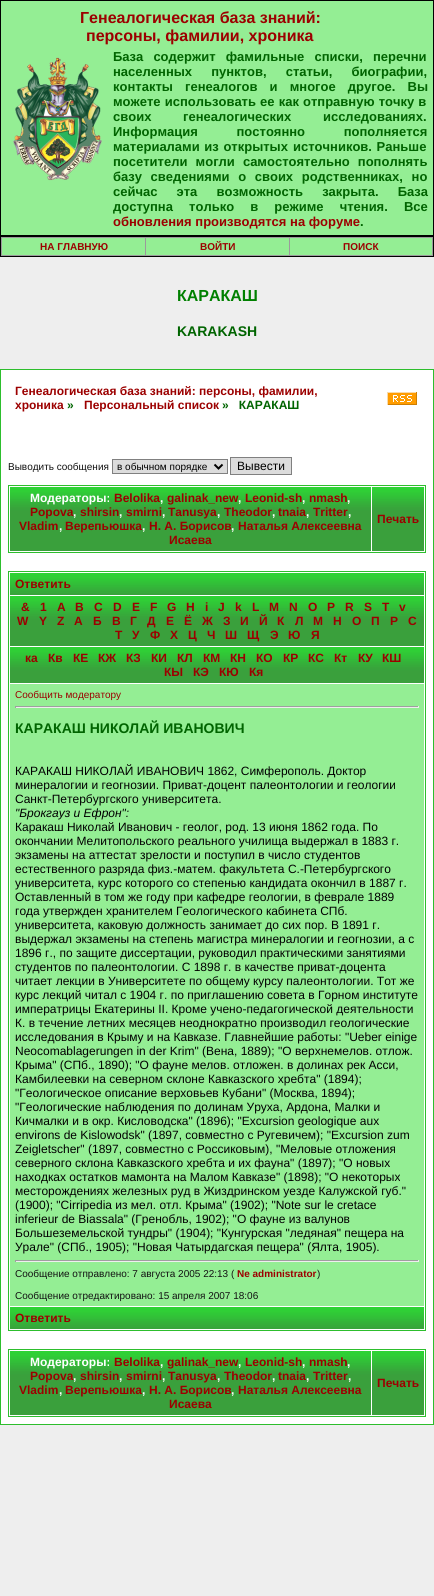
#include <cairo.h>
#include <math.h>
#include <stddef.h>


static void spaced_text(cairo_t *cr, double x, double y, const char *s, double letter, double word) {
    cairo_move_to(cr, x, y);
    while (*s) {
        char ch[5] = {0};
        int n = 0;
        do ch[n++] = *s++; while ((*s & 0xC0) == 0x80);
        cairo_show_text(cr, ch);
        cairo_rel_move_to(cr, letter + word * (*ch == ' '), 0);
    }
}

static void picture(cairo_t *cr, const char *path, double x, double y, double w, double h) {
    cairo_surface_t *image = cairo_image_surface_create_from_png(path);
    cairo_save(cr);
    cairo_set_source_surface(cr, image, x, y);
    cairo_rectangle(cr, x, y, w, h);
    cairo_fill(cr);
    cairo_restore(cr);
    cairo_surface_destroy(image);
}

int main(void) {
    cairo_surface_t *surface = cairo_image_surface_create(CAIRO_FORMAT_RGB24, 434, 1596);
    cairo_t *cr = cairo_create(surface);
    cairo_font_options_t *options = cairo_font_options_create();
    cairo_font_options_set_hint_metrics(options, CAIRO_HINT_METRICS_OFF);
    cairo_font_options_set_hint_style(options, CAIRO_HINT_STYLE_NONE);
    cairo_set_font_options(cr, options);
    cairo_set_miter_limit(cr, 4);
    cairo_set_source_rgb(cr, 0.933, 0.933, 0.933);
    cairo_paint(cr);
    cairo_set_source_rgb(cr, 0.58, 0.933, 0.58);
    cairo_rectangle(cr, 0.5, 0.5, 433, 235);
    cairo_fill_preserve(cr);
    cairo_set_source_rgb(cr, 0, 0, 0);
    cairo_set_line_width(cr, 1);
    cairo_stroke(cr);
    picture(cr, "img1.png", 13, 57, 89, 124);
    cairo_select_font_face(cr, "Liberation Sans", CAIRO_FONT_SLANT_NORMAL, CAIRO_FONT_WEIGHT_BOLD);
    cairo_set_font_size(cr, 16);
    cairo_set_source_rgb(cr, 0.612, 0, 0);
    cairo_move_to(cr, 80, 23);
    cairo_show_text(cr, "Генеалогическая база знаний:");
    cairo_move_to(cr, 86, 41);
    cairo_show_text(cr, "персоны, фамилии, хроника");
    cairo_set_font_size(cr, 13);
    cairo_set_source_rgb(cr, 0, 0.392, 0);
    spaced_text(cr, 113, 61, "База содержит фамильные списки, перечни", 0, 6.5);
    spaced_text(cr, 113, 76, "населенных пунктов, статьи, биографии,", 0, 15.5);
    spaced_text(cr, 113, 91, "контакты генеалогов и многое другое. Вы", 0, 8.5);
    spaced_text(cr, 113, 106, "можете использовать ее как отправную точку в", 0, 0.5);
    spaced_text(cr, 113, 121, "своих генеалогических исследованиях.", 0, 28);
    spaced_text(cr, 113, 136, "Информация постоянно пополняется", 0, 35);
    spaced_text(cr, 113, 151, "материалами из открытых", 0, 1);
    spaced_text(cr, 293, 151, "источников. Раньше", 0, 1);
    spaced_text(cr, 113, 166, "посетители могли самостоятельно пополнять", 0, 4.5);
    spaced_text(cr, 113, 181, "базу сведениями о своих родственниках, но", 0, 5);
    spaced_text(cr, 113, 196, "сейчас эта возможность закрыта. База", 0, 15.5);
    spaced_text(cr, 113, 211, "доступна только в режиме чтения. Все", 0, 12.5);
    cairo_set_source_rgb(cr, 0.612, 0, 0);
    cairo_move_to(cr, 113, 226);
    cairo_show_text(cr, "обновления производятся на форуме");
    cairo_set_source_rgb(cr, 0, 0.392, 0);
    cairo_move_to(cr, 360, 226);
    cairo_show_text(cr, ".");
    cairo_set_source_rgb(cr, 0.612, 0.6, 0.612);
    cairo_rectangle(cr, 0.5, 236.5, 433, 20);
    cairo_fill_preserve(cr);
    cairo_set_source_rgb(cr, 0, 0, 0);
    cairo_stroke(cr);
    cairo_set_source_rgb(cr, 0.58, 0.933, 0.58);
    cairo_rectangle(cr, 2, 238, 143, 17);
    cairo_fill(cr);
    cairo_set_font_size(cr, 10);
    cairo_set_source_rgb(cr, 0.612, 0, 0);
    cairo_move_to(cr, 40, 250);
    cairo_show_text(cr, "НА ГЛАВНУЮ");
    cairo_set_source_rgb(cr, 0.58, 0.933, 0.58);
    cairo_rectangle(cr, 146, 238, 143, 17);
    cairo_fill(cr);
    cairo_set_source_rgb(cr, 0.612, 0, 0);
    cairo_move_to(cr, 200, 250);
    cairo_show_text(cr, "ВОЙТИ");
    cairo_set_source_rgb(cr, 0.58, 0.933, 0.58);
    cairo_rectangle(cr, 290, 238, 142, 17);
    cairo_fill(cr);
    cairo_set_source_rgb(cr, 0.612, 0, 0);
    cairo_move_to(cr, 343, 250);
    cairo_show_text(cr, "ПОИСК");
    cairo_set_font_size(cr, 16);
    cairo_set_source_rgb(cr, 0, 0.502, 0);
    cairo_move_to(cr, 177, 301);
    cairo_show_text(cr, "КАРАКАШ");
    cairo_set_font_size(cr, 14);
    cairo_set_source_rgb(cr, 0, 0.392, 0);
    cairo_move_to(cr, 177, 336);
    cairo_show_text(cr, "KARAKASH");
    cairo_set_source_rgb(cr, 1, 1, 1);
    cairo_rectangle(cr, 0.5, 369.5, 433, 1055);
    cairo_fill_preserve(cr);
    cairo_set_source_rgb(cr, 0.176, 0.745, 0.176);
    cairo_stroke(cr);
    cairo_set_font_size(cr, 12);
    cairo_set_source_rgb(cr, 0.612, 0, 0);
    cairo_move_to(cr, 15, 395);
    cairo_show_text(cr, "Генеалогическая база знаний: персоны, фамилии,");
    cairo_move_to(cr, 15, 409);
    cairo_show_text(cr, "хроника");
    cairo_set_source_rgb(cr, 0, 0.392, 0);
    cairo_move_to(cr, 67, 409);
    cairo_show_text(cr, "»");
    cairo_set_source_rgb(cr, 0.612, 0, 0);
    cairo_move_to(cr, 84, 409);
    cairo_show_text(cr, "Персональный список");
    cairo_set_source_rgb(cr, 0, 0.392, 0);
    cairo_move_to(cr, 222, 409);
    cairo_show_text(cr, "»   КАРАКАШ");
    picture(cr, "img2.png", 387, 392, 30, 13);
    cairo_select_font_face(cr, "Liberation Sans", CAIRO_FONT_SLANT_NORMAL, CAIRO_FONT_WEIGHT_NORMAL);
    cairo_set_font_size(cr, 10);
    cairo_set_source_rgb(cr, 0.067, 0.067, 0.067);
    cairo_move_to(cr, 8, 470);
    cairo_show_text(cr, "Выводить сообщения");
    cairo_set_source_rgb(cr, 0.863, 0.863, 0.863);
    cairo_rectangle(cr, 112.5, 459.5, 115, 14);
    cairo_fill_preserve(cr);
    cairo_set_source_rgb(cr, 0.502, 0.502, 0.502);
    cairo_stroke(cr);
    cairo_new_path(cr);
    cairo_move_to(cr, 214.5, 464.5);
    cairo_line_to(cr, 218.5, 468.5);
    cairo_line_to(cr, 222.5, 464.5);
    cairo_set_source_rgb(cr, 0, 0, 0);
    cairo_set_line_width(cr, 2);
    cairo_stroke(cr);
    cairo_move_to(cr, 117, 470);
    cairo_show_text(cr, "в обычном порядке");
    cairo_set_source_rgb(cr, 0.863, 0.863, 0.863);
    cairo_rectangle(cr, 230.5, 457.5, 61, 17);
    cairo_fill_preserve(cr);
    cairo_set_source_rgb(cr, 0.502, 0.502, 0.502);
    cairo_set_line_width(cr, 1);
    cairo_stroke(cr);
    cairo_set_font_size(cr, 12);
    cairo_set_source_rgb(cr, 0, 0, 0);
    cairo_move_to(cr, 237, 470);
    cairo_show_text(cr, "Вывести");
    cairo_rectangle(cr, 8.5, 485.5, 417, 67);
    cairo_set_source_rgb(cr, 0.176, 0.745, 0.176);
    cairo_stroke(cr);
    picture(cr, "img3.png", 10, 487, 361, 64);
    cairo_select_font_face(cr, "Liberation Sans", CAIRO_FONT_SLANT_NORMAL, CAIRO_FONT_WEIGHT_BOLD);
    cairo_set_source_rgb(cr, 1, 1, 1);
    cairo_move_to(cr, 30, 502);
    cairo_show_text(cr, "Модераторы:");
    cairo_set_source_rgb(cr, 0.612, 0, 0);
    cairo_move_to(cr, 114, 502);
    cairo_show_text(cr, "Belolika");
    cairo_set_source_rgb(cr, 1, 1, 1);
    cairo_move_to(cr, 160, 502);
    cairo_show_text(cr, ",");
    cairo_set_source_rgb(cr, 0.612, 0, 0);
    cairo_move_to(cr, 167, 502);
    cairo_show_text(cr, "galinak_new");
    cairo_set_source_rgb(cr, 1, 1, 1);
    cairo_move_to(cr, 238, 502);
    cairo_show_text(cr, ",");
    cairo_set_source_rgb(cr, 0.612, 0, 0);
    cairo_move_to(cr, 245, 502);
    cairo_show_text(cr, "Leonid-sh");
    cairo_set_source_rgb(cr, 1, 1, 1);
    cairo_move_to(cr, 302, 502);
    cairo_show_text(cr, ",");
    cairo_set_source_rgb(cr, 0.612, 0, 0);
    cairo_move_to(cr, 309, 502);
    cairo_show_text(cr, "nmash");
    cairo_set_source_rgb(cr, 1, 1, 1);
    cairo_move_to(cr, 347, 502);
    cairo_show_text(cr, ",");
    cairo_set_source_rgb(cr, 0.612, 0, 0);
    cairo_move_to(cr, 30, 516);
    cairo_show_text(cr, "Popova");
    cairo_set_source_rgb(cr, 1, 1, 1);
    cairo_move_to(cr, 73, 516);
    cairo_show_text(cr, ",");
    cairo_set_source_rgb(cr, 0.612, 0, 0);
    cairo_move_to(cr, 80, 516);
    cairo_show_text(cr, "shirsin");
    cairo_set_source_rgb(cr, 1, 1, 1);
    cairo_move_to(cr, 119, 516);
    cairo_show_text(cr, ",");
    cairo_set_source_rgb(cr, 0.612, 0, 0);
    cairo_move_to(cr, 126, 516);
    cairo_show_text(cr, "smirni");
    cairo_set_source_rgb(cr, 1, 1, 1);
    cairo_move_to(cr, 162, 516);
    cairo_show_text(cr, ",");
    cairo_set_source_rgb(cr, 0.612, 0, 0);
    cairo_move_to(cr, 168, 516);
    cairo_show_text(cr, "Tanusya");
    cairo_set_source_rgb(cr, 1, 1, 1);
    cairo_move_to(cr, 217, 516);
    cairo_show_text(cr, ",");
    cairo_set_source_rgb(cr, 0.612, 0, 0);
    cairo_move_to(cr, 224, 516);
    cairo_show_text(cr, "Theodor");
    cairo_set_source_rgb(cr, 1, 1, 1);
    cairo_move_to(cr, 272, 516);
    cairo_show_text(cr, ",");
    cairo_set_source_rgb(cr, 0.612, 0, 0);
    cairo_move_to(cr, 278, 516);
    cairo_show_text(cr, "tnaia");
    cairo_set_source_rgb(cr, 1, 1, 1);
    cairo_move_to(cr, 306, 516);
    cairo_show_text(cr, ",");
    cairo_set_source_rgb(cr, 0.612, 0, 0);
    cairo_move_to(cr, 313, 516);
    cairo_show_text(cr, "Tritter");
    cairo_set_source_rgb(cr, 1, 1, 1);
    cairo_move_to(cr, 348, 516);
    cairo_show_text(cr, ",");
    cairo_set_source_rgb(cr, 0.612, 0, 0);
    cairo_move_to(cr, 19, 530);
    cairo_show_text(cr, "Vladim");
    cairo_set_source_rgb(cr, 1, 1, 1);
    cairo_move_to(cr, 59, 530);
    cairo_show_text(cr, ",");
    cairo_set_source_rgb(cr, 0.612, 0, 0);
    cairo_move_to(cr, 65, 530);
    cairo_show_text(cr, "Верепьюшка");
    cairo_set_source_rgb(cr, 1, 1, 1);
    cairo_move_to(cr, 142, 530);
    cairo_show_text(cr, ",");
    cairo_set_source_rgb(cr, 0.612, 0, 0);
    cairo_move_to(cr, 149, 530);
    cairo_show_text(cr, "Н. А. Борисов");
    cairo_set_source_rgb(cr, 1, 1, 1);
    cairo_move_to(cr, 231, 530);
    cairo_show_text(cr, ",");
    cairo_set_source_rgb(cr, 0.612, 0, 0);
    cairo_move_to(cr, 238, 530);
    cairo_show_text(cr, "Наталья Алексеевна");
    cairo_move_to(cr, 169, 544);
    cairo_show_text(cr, "Исаева");
    picture(cr, "img4.png", 372, 487, 52, 64);
    cairo_move_to(cr, 377, 523);
    cairo_show_text(cr, "Печать");
    cairo_rectangle(cr, 8.5, 571.5, 417, 759);
    cairo_set_source_rgb(cr, 0.176, 0.745, 0.176);
    cairo_stroke(cr);
    picture(cr, "img5.png", 10, 573, 414, 22);
    cairo_set_source_rgb(cr, 0.612, 0, 0);
    cairo_move_to(cr, 15, 588);
    cairo_show_text(cr, "Ответить");
    picture(cr, "img6.png", 10, 596, 414, 50);
    cairo_move_to(cr, 21, 611);
    cairo_show_text(cr, "&");
    cairo_move_to(cr, 40, 611);
    cairo_show_text(cr, "1");
    cairo_move_to(cr, 57, 611);
    cairo_show_text(cr, "A");
    cairo_move_to(cr, 75, 611);
    cairo_show_text(cr, "B");
    cairo_move_to(cr, 94, 611);
    cairo_show_text(cr, "C");
    cairo_move_to(cr, 113, 611);
    cairo_show_text(cr, "D");
    cairo_move_to(cr, 132, 611);
    cairo_show_text(cr, "E");
    cairo_move_to(cr, 150, 611);
    cairo_show_text(cr, "F");
    cairo_move_to(cr, 167, 611);
    cairo_show_text(cr, "G");
    cairo_move_to(cr, 186, 611);
    cairo_show_text(cr, "H");
    cairo_move_to(cr, 205, 611);
    cairo_show_text(cr, "i");
    cairo_move_to(cr, 218, 611);
    cairo_show_text(cr, "J");
    cairo_move_to(cr, 235, 611);
    cairo_show_text(cr, "k");
    cairo_move_to(cr, 252, 611);
    cairo_show_text(cr, "L");
    cairo_move_to(cr, 269, 611);
    cairo_show_text(cr, "M");
    cairo_move_to(cr, 289, 611);
    cairo_show_text(cr, "N");
    cairo_move_to(cr, 308, 611);
    cairo_show_text(cr, "O");
    cairo_move_to(cr, 327, 611);
    cairo_show_text(cr, "P");
    cairo_move_to(cr, 345, 611);
    cairo_show_text(cr, "R");
    cairo_move_to(cr, 364, 611);
    cairo_show_text(cr, "S");
    cairo_move_to(cr, 382, 611);
    cairo_show_text(cr, "T");
    cairo_move_to(cr, 399, 611);
    cairo_show_text(cr, "v");
    cairo_move_to(cr, 17, 625);
    cairo_show_text(cr, "W");
    cairo_move_to(cr, 39, 625);
    cairo_show_text(cr, "Y");
    cairo_move_to(cr, 57, 625);
    cairo_show_text(cr, "Z");
    cairo_move_to(cr, 74, 625);
    cairo_show_text(cr, "А");
    cairo_move_to(cr, 93, 625);
    cairo_show_text(cr, "Б");
    cairo_move_to(cr, 112, 625);
    cairo_show_text(cr, "В");
    cairo_move_to(cr, 130, 625);
    cairo_show_text(cr, "Г");
    cairo_move_to(cr, 147, 625);
    cairo_show_text(cr, "Д");
    cairo_move_to(cr, 166, 625);
    cairo_show_text(cr, "Е");
    cairo_move_to(cr, 184, 625);
    cairo_show_text(cr, "Ё");
    cairo_move_to(cr, 202, 625);
    cairo_show_text(cr, "Ж");
    cairo_move_to(cr, 223, 625);
    cairo_show_text(cr, "З");
    cairo_move_to(cr, 240, 625);
    cairo_show_text(cr, "И");
    cairo_move_to(cr, 259, 625);
    cairo_show_text(cr, "Й");
    cairo_move_to(cr, 277, 625);
    cairo_show_text(cr, "К");
    cairo_move_to(cr, 295, 625);
    cairo_show_text(cr, "Л");
    cairo_move_to(cr, 313, 625);
    cairo_show_text(cr, "М");
    cairo_move_to(cr, 333, 625);
    cairo_show_text(cr, "Н");
    cairo_move_to(cr, 352, 625);
    cairo_show_text(cr, "О");
    cairo_move_to(cr, 371, 625);
    cairo_show_text(cr, "П");
    cairo_move_to(cr, 390, 625);
    cairo_show_text(cr, "Р");
    cairo_move_to(cr, 408, 625);
    cairo_show_text(cr, "С");
    cairo_move_to(cr, 115, 639);
    cairo_show_text(cr, "Т");
    cairo_move_to(cr, 132, 639);
    cairo_show_text(cr, "У");
    cairo_move_to(cr, 150, 639);
    cairo_show_text(cr, "Ф");
    cairo_move_to(cr, 170, 639);
    cairo_show_text(cr, "Х");
    cairo_move_to(cr, 188, 639);
    cairo_show_text(cr, "Ц");
    cairo_move_to(cr, 207, 639);
    cairo_show_text(cr, "Ч");
    cairo_move_to(cr, 225, 639);
    cairo_show_text(cr, "Ш");
    cairo_move_to(cr, 247, 639);
    cairo_show_text(cr, "Щ");
    cairo_move_to(cr, 270, 639);
    cairo_show_text(cr, "Э");
    cairo_move_to(cr, 288, 639);
    cairo_show_text(cr, "Ю");
    cairo_move_to(cr, 311, 639);
    cairo_show_text(cr, "Я");
    picture(cr, "img7.png", 10, 647, 414, 36);
    cairo_move_to(cr, 25, 662);
    cairo_show_text(cr, "ка");
    cairo_move_to(cr, 48, 662);
    cairo_show_text(cr, "Кв");
    cairo_move_to(cr, 73, 662);
    cairo_show_text(cr, "КЕ");
    cairo_move_to(cr, 98, 662);
    cairo_show_text(cr, "КЖ");
    cairo_move_to(cr, 126, 662);
    cairo_show_text(cr, "КЗ");
    cairo_move_to(cr, 151, 662);
    cairo_show_text(cr, "КИ");
    cairo_move_to(cr, 177, 662);
    cairo_show_text(cr, "КЛ");
    cairo_move_to(cr, 203, 662);
    cairo_show_text(cr, "КМ");
    cairo_move_to(cr, 230, 662);
    cairo_show_text(cr, "КН");
    cairo_move_to(cr, 256, 662);
    cairo_show_text(cr, "КО");
    cairo_move_to(cr, 283, 662);
    cairo_show_text(cr, "КР");
    cairo_move_to(cr, 308, 662);
    cairo_show_text(cr, "КС");
    cairo_move_to(cr, 334, 662);
    cairo_show_text(cr, "Кт");
    cairo_move_to(cr, 358, 662);
    cairo_show_text(cr, "КУ");
    cairo_move_to(cr, 382, 662);
    cairo_show_text(cr, "КШ");
    cairo_move_to(cr, 164, 676);
    cairo_show_text(cr, "КЫ");
    cairo_move_to(cr, 193, 676);
    cairo_show_text(cr, "КЭ");
    cairo_move_to(cr, 219, 676);
    cairo_show_text(cr, "КЮ");
    cairo_move_to(cr, 249, 676);
    cairo_show_text(cr, "Кя");
    cairo_set_source_rgb(cr, 0.58, 0.933, 0.58);
    cairo_rectangle(cr, 10, 684, 414, 622);
    cairo_fill(cr);
    cairo_select_font_face(cr, "Liberation Sans", CAIRO_FONT_SLANT_NORMAL, CAIRO_FONT_WEIGHT_NORMAL);
    cairo_set_font_size(cr, 10);
    cairo_set_source_rgb(cr, 0.612, 0, 0);
    cairo_move_to(cr, 15, 698);
    cairo_show_text(cr, "Сообщить модератору");
    cairo_set_source_rgb(cr, 0.624, 0.624, 0.624);
    cairo_rectangle(cr, 15, 706, 404, 1);
    cairo_fill(cr);
    cairo_set_source_rgb(cr, 0.933, 0.933, 0.933);
    cairo_rectangle(cr, 418, 706, 1, 2);
    cairo_fill(cr);
    cairo_rectangle(cr, 15, 707, 404, 1);
    cairo_fill(cr);
    cairo_set_source_rgb(cr, 0.624, 0.624, 0.624);
    cairo_rectangle(cr, 15, 706, 1, 2);
    cairo_fill(cr);
    cairo_select_font_face(cr, "Liberation Sans", CAIRO_FONT_SLANT_NORMAL, CAIRO_FONT_WEIGHT_BOLD);
    cairo_set_font_size(cr, 14);
    cairo_set_source_rgb(cr, 0, 0.392, 0);
    cairo_move_to(cr, 15, 733);
    cairo_show_text(cr, "КАРАКАШ НИКОЛАЙ ИВАНОВИЧ");
    cairo_select_font_face(cr, "Liberation Sans", CAIRO_FONT_SLANT_NORMAL, CAIRO_FONT_WEIGHT_NORMAL);
    cairo_set_font_size(cr, 12);
    cairo_set_source_rgb(cr, 0, 0, 0);
    cairo_move_to(cr, 15, 775);
    cairo_show_text(cr, "КАРАКАШ НИКОЛАЙ ИВАНОВИЧ 1862, Симферополь. Доктор");
    cairo_move_to(cr, 15, 789);
    cairo_show_text(cr, "минералогии и геогнозии. Приват-доцент палеонтологии и геологии");
    cairo_move_to(cr, 15, 803);
    cairo_show_text(cr, "Санкт-Петербургского университета.");
    cairo_select_font_face(cr, "Liberation Sans", CAIRO_FONT_SLANT_ITALIC, CAIRO_FONT_WEIGHT_NORMAL);
    cairo_move_to(cr, 15, 817);
    cairo_show_text(cr, "\"Брокгауз и Ефрон\":");
    cairo_select_font_face(cr, "Liberation Sans", CAIRO_FONT_SLANT_NORMAL, CAIRO_FONT_WEIGHT_NORMAL);
    cairo_move_to(cr, 15, 831);
    cairo_show_text(cr, "Каракаш Николай Иванович - геолог, род. 13 июня 1862 года. По");
    cairo_move_to(cr, 15, 845);
    cairo_show_text(cr, "окончании Мелитопольского реального училища выдержал в 1883 г.");
    cairo_move_to(cr, 15, 859);
    cairo_show_text(cr, "экзамены на аттестат зрелости и поступил в число студентов");
    cairo_move_to(cr, 15, 873);
    cairo_show_text(cr, "естественного разряда физ.-матем. факультета С.-Петербургского");
    cairo_move_to(cr, 15, 887);
    cairo_show_text(cr, "университета, курс которого со степенью кандидата окончил в 1887 г.");
    cairo_move_to(cr, 15, 901);
    cairo_show_text(cr, "Оставленный в том же году при кафедре геологии, в феврале 1889");
    cairo_move_to(cr, 15, 915);
    cairo_show_text(cr, "года утвержден хранителем Геологического кабинета СПб.");
    cairo_move_to(cr, 15, 929);
    cairo_show_text(cr, "университета, каковую должность занимает до сих пор. В 1891 г.");
    cairo_move_to(cr, 15, 943);
    cairo_show_text(cr, "выдержал экзамены на степень магистра минералогии и геогнозии, а с");
    cairo_move_to(cr, 15, 957);
    cairo_show_text(cr, "1896 г., по защите диссертации, руководил практическими занятиями");
    cairo_move_to(cr, 15, 971);
    cairo_show_text(cr, "студентов по палеонтологии. С 1898 г. в качестве приват-доцента");
    cairo_move_to(cr, 15, 985);
    cairo_show_text(cr, "читает лекции в Университете по общему курсу палеонтологии. Тот же");
    cairo_move_to(cr, 15, 999);
    cairo_show_text(cr, "курс лекций читал с 1904 г. по приглашению совета в Горном институте");
    cairo_move_to(cr, 15, 1013);
    cairo_show_text(cr, "императрицы Екатерины II. Кроме учено-педагогической деятельности");
    cairo_move_to(cr, 15, 1027);
    cairo_show_text(cr, "К. в течение летних месяцев неоднократно производил геологические");
    cairo_move_to(cr, 15, 1041);
    cairo_show_text(cr, "исследования в Крыму и на Кавказе. Главнейшие работы: \"Ueber einige");
    cairo_move_to(cr, 15, 1055);
    cairo_show_text(cr, "Neocomablagerungen in der Krim\" (Вена, 1889); \"О верхнемелов. отлож.");
    cairo_move_to(cr, 15, 1069);
    cairo_show_text(cr, "Крыма\" (СПб., 1890); \"О фауне мелов. отложен. в долинах рек Асси,");
    cairo_move_to(cr, 15, 1083);
    cairo_show_text(cr, "Камбилеевки на северном склоне Кавказского хребта\" (1894);");
    cairo_move_to(cr, 15, 1097);
    cairo_show_text(cr, "\"Геологическое описание верховьев Кубани\" (Москва, 1894);");
    cairo_move_to(cr, 15, 1111);
    cairo_show_text(cr, "\"Геологические наблюдения по долинам Уруха, Ардона, Малки и");
    cairo_move_to(cr, 15, 1125);
    cairo_show_text(cr, "Кичмалки и в окр. Кисловодска\" (1896); \"Excursion geologique aux");
    cairo_move_to(cr, 15, 1139);
    cairo_show_text(cr, "environs de Kislowodsk\" (1897, совместно с Ругевичем); \"Excursion zum");
    cairo_move_to(cr, 15, 1153);
    cairo_show_text(cr, "Zeigletscher\" (1897, совместно с Россиковым), \"Меловые отложения");
    cairo_move_to(cr, 15, 1167);
    cairo_show_text(cr, "северного склона Кавказского хребта и их фауна\" (1897); \"О новых");
    cairo_move_to(cr, 15, 1181);
    cairo_show_text(cr, "находках остатков мамонта на Малом Кавказе\" (1898); \"О некоторых");
    cairo_move_to(cr, 15, 1195);
    cairo_show_text(cr, "месторождениях железных руд в Жиздринском уезде Калужской губ.\"");
    cairo_move_to(cr, 15, 1209);
    cairo_show_text(cr, "(1900); \"Cirripedia из мел. отл. Крыма\" (1902); \"Note sur le cretace");
    cairo_move_to(cr, 15, 1223);
    cairo_show_text(cr, "inferieur de Biassala\" (Гренобль, 1902); \"О фауне из валунов");
    cairo_move_to(cr, 15, 1237);
    cairo_show_text(cr, "Большеземельской тундры\" (1904); \"Кунгурская \"ледяная\" пещера на");
    cairo_move_to(cr, 15, 1251);
    cairo_show_text(cr, "Урале\" (СПб., 1905); \"Новая Чатырдагская пещера\" (Ялта, 1905).");
    cairo_set_source_rgb(cr, 0.624, 0.624, 0.624);
    cairo_rectangle(cr, 15, 1260, 404, 1);
    cairo_fill(cr);
    cairo_set_source_rgb(cr, 0.933, 0.933, 0.933);
    cairo_rectangle(cr, 418, 1260, 1, 2);
    cairo_fill(cr);
    cairo_rectangle(cr, 15, 1261, 404, 1);
    cairo_fill(cr);
    cairo_set_source_rgb(cr, 0.624, 0.624, 0.624);
    cairo_rectangle(cr, 15, 1260, 1, 2);
    cairo_fill(cr);
    cairo_set_font_size(cr, 10);
    cairo_set_source_rgb(cr, 0.067, 0.067, 0.067);
    cairo_move_to(cr, 15, 1277);
    cairo_show_text(cr, "Сообщение отправлено: 7 августа 2005 22:13 (");
    cairo_select_font_face(cr, "Liberation Sans", CAIRO_FONT_SLANT_NORMAL, CAIRO_FONT_WEIGHT_BOLD);
    cairo_set_source_rgb(cr, 0.612, 0, 0);
    cairo_move_to(cr, 237, 1277);
    cairo_show_text(cr, "Ne administrator");
    cairo_select_font_face(cr, "Liberation Sans", CAIRO_FONT_SLANT_NORMAL, CAIRO_FONT_WEIGHT_NORMAL);
    cairo_set_source_rgb(cr, 0.067, 0.067, 0.067);
    cairo_move_to(cr, 317, 1277);
    cairo_show_text(cr, ")");
    cairo_move_to(cr, 15, 1299);
    cairo_show_text(cr, "Сообщение отредактировано: 15 апреля 2007 18:06");
    picture(cr, "img5.png", 10, 1307, 414, 22);
    cairo_select_font_face(cr, "Liberation Sans", CAIRO_FONT_SLANT_NORMAL, CAIRO_FONT_WEIGHT_BOLD);
    cairo_set_font_size(cr, 12);
    cairo_set_source_rgb(cr, 0.612, 0, 0);
    cairo_move_to(cr, 15, 1322);
    cairo_show_text(cr, "Ответить");
    cairo_rectangle(cr, 8.5, 1349.5, 417, 67);
    cairo_set_source_rgb(cr, 0.176, 0.745, 0.176);
    cairo_stroke(cr);
    picture(cr, "img3.png", 10, 1351, 361, 64);
    cairo_set_source_rgb(cr, 1, 1, 1);
    cairo_move_to(cr, 30, 1366);
    cairo_show_text(cr, "Модераторы:");
    cairo_set_source_rgb(cr, 0.612, 0, 0);
    cairo_move_to(cr, 114, 1366);
    cairo_show_text(cr, "Belolika");
    cairo_set_source_rgb(cr, 1, 1, 1);
    cairo_move_to(cr, 160, 1366);
    cairo_show_text(cr, ",");
    cairo_set_source_rgb(cr, 0.612, 0, 0);
    cairo_move_to(cr, 167, 1366);
    cairo_show_text(cr, "galinak_new");
    cairo_set_source_rgb(cr, 1, 1, 1);
    cairo_move_to(cr, 238, 1366);
    cairo_show_text(cr, ",");
    cairo_set_source_rgb(cr, 0.612, 0, 0);
    cairo_move_to(cr, 245, 1366);
    cairo_show_text(cr, "Leonid-sh");
    cairo_set_source_rgb(cr, 1, 1, 1);
    cairo_move_to(cr, 302, 1366);
    cairo_show_text(cr, ",");
    cairo_set_source_rgb(cr, 0.612, 0, 0);
    cairo_move_to(cr, 309, 1366);
    cairo_show_text(cr, "nmash");
    cairo_set_source_rgb(cr, 1, 1, 1);
    cairo_move_to(cr, 347, 1366);
    cairo_show_text(cr, ",");
    cairo_set_source_rgb(cr, 0.612, 0, 0);
    cairo_move_to(cr, 30, 1380);
    cairo_show_text(cr, "Popova");
    cairo_set_source_rgb(cr, 1, 1, 1);
    cairo_move_to(cr, 73, 1380);
    cairo_show_text(cr, ",");
    cairo_set_source_rgb(cr, 0.612, 0, 0);
    cairo_move_to(cr, 80, 1380);
    cairo_show_text(cr, "shirsin");
    cairo_set_source_rgb(cr, 1, 1, 1);
    cairo_move_to(cr, 119, 1380);
    cairo_show_text(cr, ",");
    cairo_set_source_rgb(cr, 0.612, 0, 0);
    cairo_move_to(cr, 126, 1380);
    cairo_show_text(cr, "smirni");
    cairo_set_source_rgb(cr, 1, 1, 1);
    cairo_move_to(cr, 162, 1380);
    cairo_show_text(cr, ",");
    cairo_set_source_rgb(cr, 0.612, 0, 0);
    cairo_move_to(cr, 168, 1380);
    cairo_show_text(cr, "Tanusya");
    cairo_set_source_rgb(cr, 1, 1, 1);
    cairo_move_to(cr, 217, 1380);
    cairo_show_text(cr, ",");
    cairo_set_source_rgb(cr, 0.612, 0, 0);
    cairo_move_to(cr, 224, 1380);
    cairo_show_text(cr, "Theodor");
    cairo_set_source_rgb(cr, 1, 1, 1);
    cairo_move_to(cr, 272, 1380);
    cairo_show_text(cr, ",");
    cairo_set_source_rgb(cr, 0.612, 0, 0);
    cairo_move_to(cr, 278, 1380);
    cairo_show_text(cr, "tnaia");
    cairo_set_source_rgb(cr, 1, 1, 1);
    cairo_move_to(cr, 306, 1380);
    cairo_show_text(cr, ",");
    cairo_set_source_rgb(cr, 0.612, 0, 0);
    cairo_move_to(cr, 313, 1380);
    cairo_show_text(cr, "Tritter");
    cairo_set_source_rgb(cr, 1, 1, 1);
    cairo_move_to(cr, 348, 1380);
    cairo_show_text(cr, ",");
    cairo_set_source_rgb(cr, 0.612, 0, 0);
    cairo_move_to(cr, 19, 1394);
    cairo_show_text(cr, "Vladim");
    cairo_set_source_rgb(cr, 1, 1, 1);
    cairo_move_to(cr, 59, 1394);
    cairo_show_text(cr, ",");
    cairo_set_source_rgb(cr, 0.612, 0, 0);
    cairo_move_to(cr, 65, 1394);
    cairo_show_text(cr, "Верепьюшка");
    cairo_set_source_rgb(cr, 1, 1, 1);
    cairo_move_to(cr, 142, 1394);
    cairo_show_text(cr, ",");
    cairo_set_source_rgb(cr, 0.612, 0, 0);
    cairo_move_to(cr, 149, 1394);
    cairo_show_text(cr, "Н. А. Борисов");
    cairo_set_source_rgb(cr, 1, 1, 1);
    cairo_move_to(cr, 231, 1394);
    cairo_show_text(cr, ",");
    cairo_set_source_rgb(cr, 0.612, 0, 0);
    cairo_move_to(cr, 238, 1394);
    cairo_show_text(cr, "Наталья Алексеевна");
    cairo_move_to(cr, 169, 1408);
    cairo_show_text(cr, "Исаева");
    picture(cr, "img4.png", 372, 1351, 52, 64);
    cairo_move_to(cr, 377, 1387);
    cairo_show_text(cr, "Печать");
    cairo_surface_write_to_png(surface, "page.png");
    cairo_font_options_destroy(options);
    cairo_destroy(cr);
    cairo_surface_destroy(surface);
    return 0;
}
